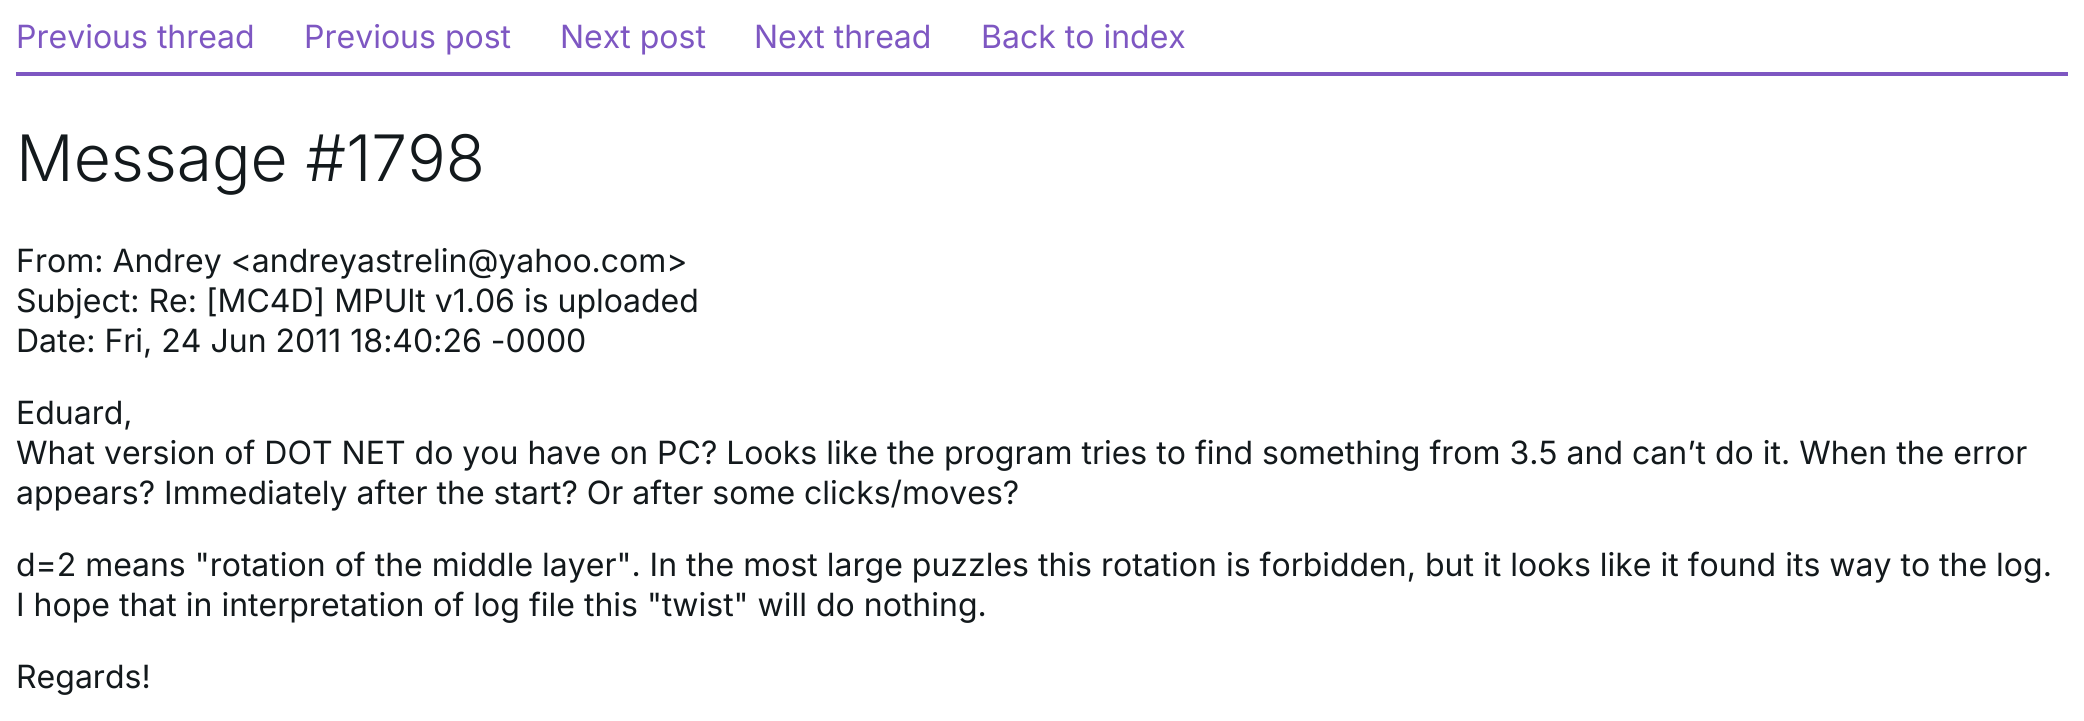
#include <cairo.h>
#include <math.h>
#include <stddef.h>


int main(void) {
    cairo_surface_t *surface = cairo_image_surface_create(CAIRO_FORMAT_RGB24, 2084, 721);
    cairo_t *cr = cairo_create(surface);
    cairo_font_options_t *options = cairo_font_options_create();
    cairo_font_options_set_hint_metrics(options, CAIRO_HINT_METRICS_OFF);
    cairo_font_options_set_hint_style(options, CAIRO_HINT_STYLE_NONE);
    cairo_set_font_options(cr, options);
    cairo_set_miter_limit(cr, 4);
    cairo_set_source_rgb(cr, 1, 1, 1);
    cairo_paint(cr);
    cairo_select_font_face(cr, "Inter", CAIRO_FONT_SLANT_NORMAL, CAIRO_FONT_WEIGHT_NORMAL);
    cairo_set_font_size(cr, 32);
    cairo_set_source_rgb(cr, 0.494, 0.341, 0.761);
    cairo_move_to(cr, 16, 48);
    cairo_show_text(cr, "Previous thread");
    cairo_move_to(cr, 304, 48);
    cairo_show_text(cr, "Previous post");
    cairo_move_to(cr, 560, 48);
    cairo_show_text(cr, "Next post");
    cairo_move_to(cr, 754, 48);
    cairo_show_text(cr, "Next thread");
    cairo_move_to(cr, 981, 48);
    cairo_show_text(cr, "Back to index");
    cairo_rectangle(cr, 16, 72, 2052, 4);
    cairo_fill(cr);
    cairo_select_font_face(cr, "Inter Light", CAIRO_FONT_SLANT_NORMAL, CAIRO_FONT_WEIGHT_NORMAL);
    cairo_set_font_size(cr, 64);
    cairo_set_source_rgb(cr, 0.075, 0.098, 0.11);
    cairo_move_to(cr, 16, 181);
    cairo_show_text(cr, "Message #1798");
    cairo_select_font_face(cr, "Inter", CAIRO_FONT_SLANT_NORMAL, CAIRO_FONT_WEIGHT_NORMAL);
    cairo_set_font_size(cr, 32);
    cairo_move_to(cr, 16, 272);
    cairo_show_text(cr, "From: Andrey <andreyastrelin@yahoo.com>");
    cairo_move_to(cr, 16, 312);
    cairo_show_text(cr, "Subject: Re: [MC4D] MPUlt v1.06 is uploaded");
    cairo_move_to(cr, 16, 352);
    cairo_show_text(cr, "Date: Fri, 24 Jun 2011 18:40:26 -0000");
    cairo_move_to(cr, 16, 424);
    cairo_show_text(cr, "Eduard,");
    cairo_move_to(cr, 16, 464);
    cairo_show_text(cr, "What version of DOT NET do you have on PC? Looks like the program tries to find something from 3.5 and can’t do it. When the error");
    cairo_move_to(cr, 16, 504);
    cairo_show_text(cr, "appears? Immediately after the start? Or after some clicks/moves?");
    cairo_move_to(cr, 16, 576);
    cairo_show_text(cr, "d=2 means \"rotation of the middle layer\". In the most large puzzles this rotation is forbidden, but it looks like it found its way to the log.");
    cairo_move_to(cr, 16, 616);
    cairo_show_text(cr, "I hope that in interpretation of log file this \"twist\" will do nothing.");
    cairo_move_to(cr, 16, 688);
    cairo_show_text(cr, "Regards!");
    cairo_surface_write_to_png(surface, "page.png");
    cairo_font_options_destroy(options);
    cairo_destroy(cr);
    cairo_surface_destroy(surface);
    return 0;
}
